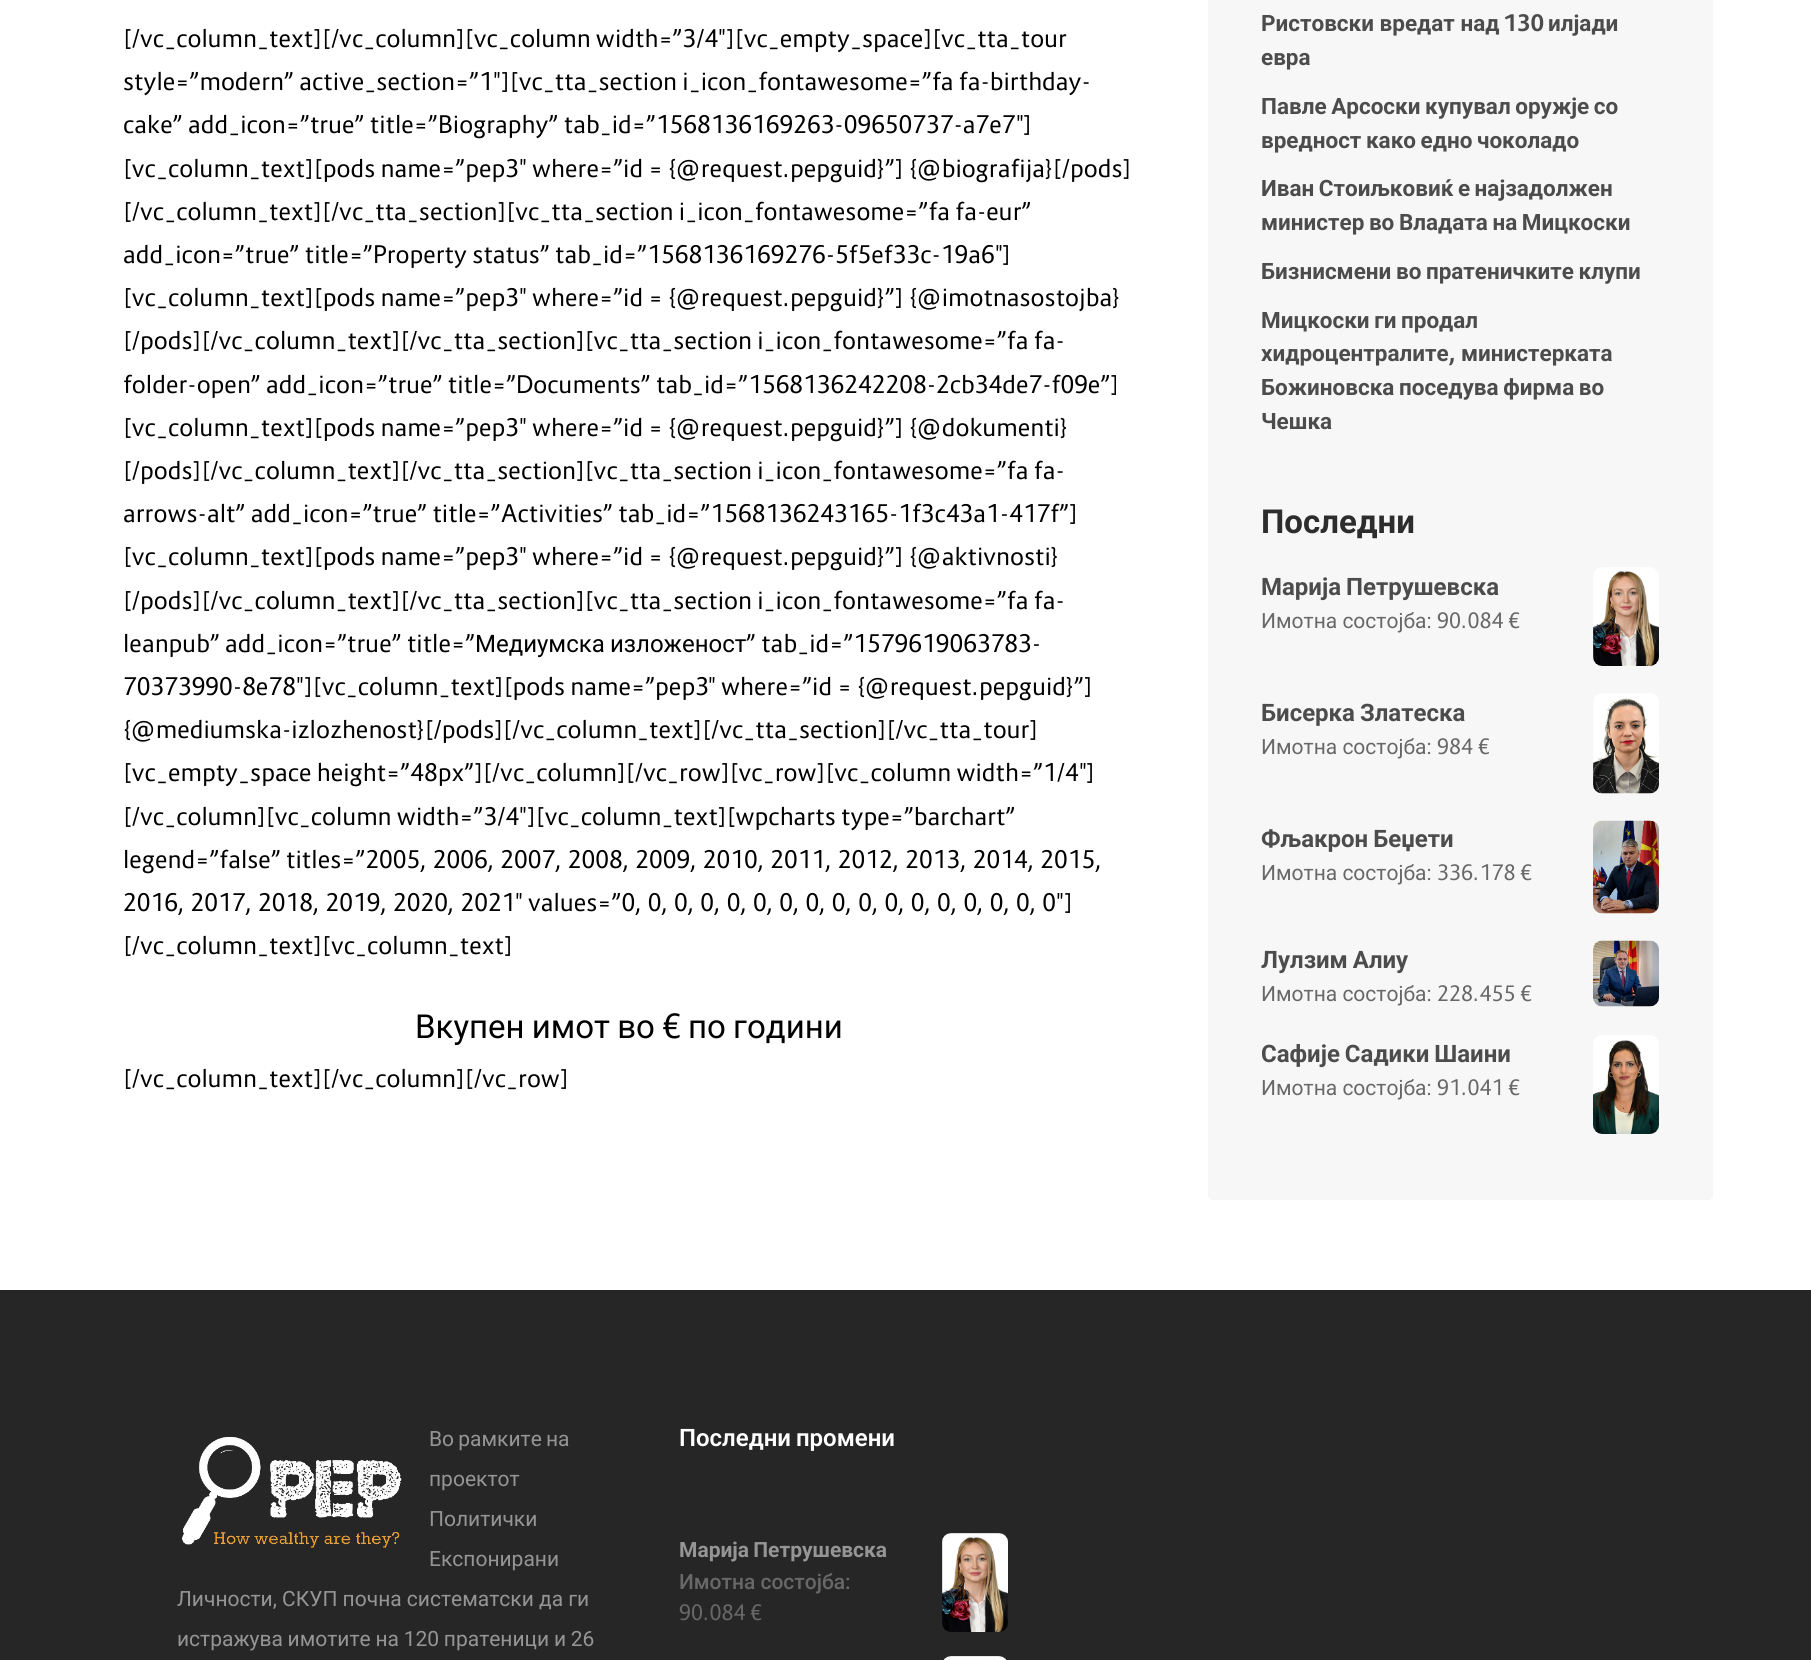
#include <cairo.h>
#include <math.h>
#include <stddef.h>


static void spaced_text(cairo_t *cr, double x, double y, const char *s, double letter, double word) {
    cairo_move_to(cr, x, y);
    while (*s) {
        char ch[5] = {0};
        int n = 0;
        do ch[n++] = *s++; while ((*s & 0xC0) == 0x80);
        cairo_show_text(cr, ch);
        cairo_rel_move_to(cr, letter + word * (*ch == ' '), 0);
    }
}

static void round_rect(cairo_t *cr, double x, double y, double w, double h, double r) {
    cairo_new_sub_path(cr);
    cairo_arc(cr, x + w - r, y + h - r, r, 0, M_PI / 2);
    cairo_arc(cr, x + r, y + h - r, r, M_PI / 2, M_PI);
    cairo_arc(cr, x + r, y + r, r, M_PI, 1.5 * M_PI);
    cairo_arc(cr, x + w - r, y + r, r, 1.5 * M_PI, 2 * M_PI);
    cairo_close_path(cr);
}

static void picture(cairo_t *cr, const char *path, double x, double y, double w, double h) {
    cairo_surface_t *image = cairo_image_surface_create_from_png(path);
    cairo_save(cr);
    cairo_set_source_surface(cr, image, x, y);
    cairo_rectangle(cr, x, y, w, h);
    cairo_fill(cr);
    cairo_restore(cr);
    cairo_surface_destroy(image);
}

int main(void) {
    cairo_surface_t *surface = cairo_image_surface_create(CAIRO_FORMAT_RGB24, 1811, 1660);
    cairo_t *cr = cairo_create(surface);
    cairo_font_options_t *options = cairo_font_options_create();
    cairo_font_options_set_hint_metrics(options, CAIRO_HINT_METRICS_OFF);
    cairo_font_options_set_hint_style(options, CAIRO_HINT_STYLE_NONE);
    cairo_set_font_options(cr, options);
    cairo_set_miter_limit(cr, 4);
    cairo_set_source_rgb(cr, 1, 1, 1);
    cairo_paint(cr);
    cairo_select_font_face(cr, "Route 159", CAIRO_FONT_SLANT_NORMAL, CAIRO_FONT_WEIGHT_NORMAL);
    cairo_set_font_size(cr, 24);
    cairo_set_source_rgb(cr, 0, 0, 0);
    cairo_move_to(cr, 123, 47);
    cairo_show_text(cr, "[/vc_column_text][/vc_column][vc_column width=”3/4");
    cairo_select_font_face(cr, "Roboto", CAIRO_FONT_SLANT_NORMAL, CAIRO_FONT_WEIGHT_NORMAL);
    cairo_move_to(cr, 718, 47);
    cairo_show_text(cr, "″");
    cairo_select_font_face(cr, "Route 159", CAIRO_FONT_SLANT_NORMAL, CAIRO_FONT_WEIGHT_NORMAL);
    cairo_move_to(cr, 726, 47);
    cairo_show_text(cr, "][vc_empty_space][vc_tta_tour");
    cairo_move_to(cr, 123, 90);
    cairo_show_text(cr, "style=”modern” active_section=”1");
    cairo_select_font_face(cr, "Roboto", CAIRO_FONT_SLANT_NORMAL, CAIRO_FONT_WEIGHT_NORMAL);
    cairo_move_to(cr, 493, 90);
    cairo_show_text(cr, "″");
    cairo_select_font_face(cr, "Route 159", CAIRO_FONT_SLANT_NORMAL, CAIRO_FONT_WEIGHT_NORMAL);
    cairo_move_to(cr, 501, 90);
    cairo_show_text(cr, "][vc_tta_section i_icon_fontawesome=”fa fa-birthday-");
    cairo_move_to(cr, 123, 133);
    cairo_show_text(cr, "cake” add_icon=”true” title=”Biography” tab_id=”1568136169263-09650737-a7e7");
    cairo_select_font_face(cr, "Roboto", CAIRO_FONT_SLANT_NORMAL, CAIRO_FONT_WEIGHT_NORMAL);
    cairo_move_to(cr, 1016, 133);
    cairo_show_text(cr, "″");
    cairo_select_font_face(cr, "Route 159", CAIRO_FONT_SLANT_NORMAL, CAIRO_FONT_WEIGHT_NORMAL);
    cairo_move_to(cr, 1023, 133);
    cairo_show_text(cr, "]");
    cairo_move_to(cr, 123, 177);
    cairo_show_text(cr, "[vc_column_text][pods name=”pep3");
    cairo_select_font_face(cr, "Roboto", CAIRO_FONT_SLANT_NORMAL, CAIRO_FONT_WEIGHT_NORMAL);
    cairo_move_to(cr, 519, 177);
    cairo_show_text(cr, "″");
    cairo_select_font_face(cr, "Route 159", CAIRO_FONT_SLANT_NORMAL, CAIRO_FONT_WEIGHT_NORMAL);
    cairo_move_to(cr, 532, 177);
    cairo_show_text(cr, "where=”id = {@request.pepguid}”] {@biografija}[/pods]");
    cairo_move_to(cr, 123, 220);
    cairo_show_text(cr, "[/vc_column_text][/vc_tta_section][vc_tta_section i_icon_fontawesome=”fa fa-eur”");
    cairo_move_to(cr, 123, 263);
    cairo_show_text(cr, "add_icon=”true” title=”Property status” tab_id=”1568136169276-5f5ef33c-19a6");
    cairo_select_font_face(cr, "Roboto", CAIRO_FONT_SLANT_NORMAL, CAIRO_FONT_WEIGHT_NORMAL);
    cairo_move_to(cr, 995, 263);
    cairo_show_text(cr, "″");
    cairo_select_font_face(cr, "Route 159", CAIRO_FONT_SLANT_NORMAL, CAIRO_FONT_WEIGHT_NORMAL);
    cairo_move_to(cr, 1002, 263);
    cairo_show_text(cr, "]");
    cairo_move_to(cr, 123, 306);
    cairo_show_text(cr, "[vc_column_text][pods name=”pep3");
    cairo_select_font_face(cr, "Roboto", CAIRO_FONT_SLANT_NORMAL, CAIRO_FONT_WEIGHT_NORMAL);
    cairo_move_to(cr, 519, 306);
    cairo_show_text(cr, "″");
    cairo_select_font_face(cr, "Route 159", CAIRO_FONT_SLANT_NORMAL, CAIRO_FONT_WEIGHT_NORMAL);
    cairo_move_to(cr, 532, 306);
    cairo_show_text(cr, "where=”id = {@request.pepguid}”] {@imotnasostojba}");
    cairo_move_to(cr, 123, 349);
    cairo_show_text(cr, "[/pods][/vc_column_text][/vc_tta_section][vc_tta_section i_icon_fontawesome=”fa fa-");
    cairo_move_to(cr, 123, 393);
    cairo_show_text(cr, "folder-open” add_icon=”true” title=”Documents” tab_id=”1568136242208-2cb34de7-f09e”]");
    cairo_move_to(cr, 123, 436);
    cairo_show_text(cr, "[vc_column_text][pods name=”pep3");
    cairo_select_font_face(cr, "Roboto", CAIRO_FONT_SLANT_NORMAL, CAIRO_FONT_WEIGHT_NORMAL);
    cairo_move_to(cr, 519, 436);
    cairo_show_text(cr, "″");
    cairo_select_font_face(cr, "Route 159", CAIRO_FONT_SLANT_NORMAL, CAIRO_FONT_WEIGHT_NORMAL);
    cairo_move_to(cr, 532, 436);
    cairo_show_text(cr, "where=”id = {@request.pepguid}”] {@dokumenti}");
    cairo_move_to(cr, 123, 479);
    cairo_show_text(cr, "[/pods][/vc_column_text][/vc_tta_section][vc_tta_section i_icon_fontawesome=”fa fa-");
    cairo_move_to(cr, 123, 522);
    cairo_show_text(cr, "arrows-alt” add_icon=”true” title=”Activities” tab_id=”1568136243165-1f3c43a1-417f”]");
    cairo_move_to(cr, 123, 565);
    cairo_show_text(cr, "[vc_column_text][pods name=”pep3");
    cairo_select_font_face(cr, "Roboto", CAIRO_FONT_SLANT_NORMAL, CAIRO_FONT_WEIGHT_NORMAL);
    cairo_move_to(cr, 519, 565);
    cairo_show_text(cr, "″");
    cairo_select_font_face(cr, "Route 159", CAIRO_FONT_SLANT_NORMAL, CAIRO_FONT_WEIGHT_NORMAL);
    cairo_move_to(cr, 532, 565);
    cairo_show_text(cr, "where=”id = {@request.pepguid}”] {@aktivnosti}");
    cairo_move_to(cr, 123, 609);
    cairo_show_text(cr, "[/pods][/vc_column_text][/vc_tta_section][vc_tta_section i_icon_fontawesome=”fa fa-");
    cairo_move_to(cr, 123, 652);
    cairo_show_text(cr, "leanpub” add_icon=”true” title=”");
    cairo_select_font_face(cr, "Roboto", CAIRO_FONT_SLANT_NORMAL, CAIRO_FONT_WEIGHT_NORMAL);
    cairo_move_to(cr, 475, 652);
    cairo_show_text(cr, "Медиумска");
    cairo_move_to(cr, 610, 652);
    cairo_show_text(cr, "изложеност");
    cairo_select_font_face(cr, "Route 159", CAIRO_FONT_SLANT_NORMAL, CAIRO_FONT_WEIGHT_NORMAL);
    cairo_move_to(cr, 746, 652);
    cairo_show_text(cr, "” tab_id=”1579619063783-");
    cairo_move_to(cr, 123, 695);
    cairo_show_text(cr, "70373990-8e78");
    cairo_select_font_face(cr, "Roboto", CAIRO_FONT_SLANT_NORMAL, CAIRO_FONT_WEIGHT_NORMAL);
    cairo_move_to(cr, 296, 695);
    cairo_show_text(cr, "″");
    cairo_select_font_face(cr, "Route 159", CAIRO_FONT_SLANT_NORMAL, CAIRO_FONT_WEIGHT_NORMAL);
    cairo_move_to(cr, 304, 695);
    cairo_show_text(cr, "][vc_column_text][pods name=”pep3");
    cairo_select_font_face(cr, "Roboto", CAIRO_FONT_SLANT_NORMAL, CAIRO_FONT_WEIGHT_NORMAL);
    cairo_move_to(cr, 708, 695);
    cairo_show_text(cr, "″");
    cairo_select_font_face(cr, "Route 159", CAIRO_FONT_SLANT_NORMAL, CAIRO_FONT_WEIGHT_NORMAL);
    cairo_move_to(cr, 721, 695);
    cairo_show_text(cr, "where=”id = {@request.pepguid}”]");
    cairo_move_to(cr, 123, 738);
    cairo_show_text(cr, "{@mediumska-izlozhenost}[/pods][/vc_column_text][/vc_tta_section][/vc_tta_tour]");
    cairo_move_to(cr, 123, 781);
    cairo_show_text(cr, "[vc_empty_space height=”48px”][/vc_column][/vc_row][vc_row][vc_column width=”1/4");
    cairo_select_font_face(cr, "Roboto", CAIRO_FONT_SLANT_NORMAL, CAIRO_FONT_WEIGHT_NORMAL);
    cairo_move_to(cr, 1079, 781);
    cairo_show_text(cr, "″");
    cairo_select_font_face(cr, "Route 159", CAIRO_FONT_SLANT_NORMAL, CAIRO_FONT_WEIGHT_NORMAL);
    cairo_move_to(cr, 1086, 781);
    cairo_show_text(cr, "]");
    cairo_move_to(cr, 123, 825);
    cairo_show_text(cr, "[/vc_column][vc_column width=”3/4");
    cairo_select_font_face(cr, "Roboto", CAIRO_FONT_SLANT_NORMAL, CAIRO_FONT_WEIGHT_NORMAL);
    cairo_move_to(cr, 519, 825);
    cairo_show_text(cr, "″");
    cairo_select_font_face(cr, "Route 159", CAIRO_FONT_SLANT_NORMAL, CAIRO_FONT_WEIGHT_NORMAL);
    cairo_move_to(cr, 527, 825);
    cairo_show_text(cr, "][vc_column_text][wpcharts type=”barchart”");
    cairo_move_to(cr, 123, 868);
    cairo_show_text(cr, "legend=”false” titles=”2005, 2006, 2007, 2008, 2009, 2010, 2011, 2012, 2013, 2014, 2015,");
    cairo_move_to(cr, 123, 911);
    cairo_show_text(cr, "2016, 2017, 2018, 2019, 2020, 2021");
    cairo_select_font_face(cr, "Roboto", CAIRO_FONT_SLANT_NORMAL, CAIRO_FONT_WEIGHT_NORMAL);
    cairo_move_to(cr, 515, 911);
    cairo_show_text(cr, "″");
    cairo_select_font_face(cr, "Route 159", CAIRO_FONT_SLANT_NORMAL, CAIRO_FONT_WEIGHT_NORMAL);
    cairo_move_to(cr, 528, 911);
    cairo_show_text(cr, "values=”0, 0, 0, 0, 0, 0, 0, 0, 0, 0, 0, 0, 0, 0, 0, 0, 0");
    cairo_select_font_face(cr, "Roboto", CAIRO_FONT_SLANT_NORMAL, CAIRO_FONT_WEIGHT_NORMAL);
    cairo_move_to(cr, 1056, 911);
    cairo_show_text(cr, "″");
    cairo_select_font_face(cr, "Route 159", CAIRO_FONT_SLANT_NORMAL, CAIRO_FONT_WEIGHT_NORMAL);
    cairo_move_to(cr, 1064, 911);
    cairo_show_text(cr, "]");
    cairo_move_to(cr, 123, 954);
    cairo_show_text(cr, "[/vc_column_text][vc_column_text]");
    cairo_select_font_face(cr, "Roboto", CAIRO_FONT_SLANT_NORMAL, CAIRO_FONT_WEIGHT_NORMAL);
    cairo_set_font_size(cr, 33);
    spaced_text(cr, 415, 1038, "Вкупен имот во", 0, -1);
    cairo_select_font_face(cr, "Route 159", CAIRO_FONT_SLANT_NORMAL, CAIRO_FONT_WEIGHT_NORMAL);
    cairo_move_to(cr, 662, 1038);
    cairo_show_text(cr, "€");
    cairo_select_font_face(cr, "Roboto", CAIRO_FONT_SLANT_NORMAL, CAIRO_FONT_WEIGHT_NORMAL);
    spaced_text(cr, 688, 1038, "по години", 0, -1);
    cairo_select_font_face(cr, "Route 159", CAIRO_FONT_SLANT_NORMAL, CAIRO_FONT_WEIGHT_NORMAL);
    cairo_set_font_size(cr, 24);
    cairo_move_to(cr, 123, 1087);
    cairo_show_text(cr, "[/vc_column_text][/vc_column][/vc_row]");
    cairo_set_source_rgb(cr, 0.965, 0.965, 0.965);
    round_rect(cr, 1208, -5, 505, 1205, 5);
    cairo_fill(cr);
    cairo_select_font_face(cr, "Roboto", CAIRO_FONT_SLANT_NORMAL, CAIRO_FONT_WEIGHT_BOLD);
    cairo_set_font_size(cr, 22.5);
    cairo_set_source_rgb(cr, 0.298, 0.298, 0.298);
    cairo_move_to(cr, 1261, 31);
    cairo_show_text(cr, "Ристовски вредат над");
    cairo_select_font_face(cr, "Route 159", CAIRO_FONT_SLANT_NORMAL, CAIRO_FONT_WEIGHT_BOLD);
    cairo_move_to(cr, 1503, 31);
    cairo_show_text(cr, "130");
    cairo_select_font_face(cr, "Roboto", CAIRO_FONT_SLANT_NORMAL, CAIRO_FONT_WEIGHT_BOLD);
    cairo_move_to(cr, 1548, 31);
    cairo_show_text(cr, "илјади");
    cairo_move_to(cr, 1261, 65);
    cairo_show_text(cr, "евра");
    spaced_text(cr, 1261, 114, "Павле Арсоски купувал оружје со", 0, -1);
    spaced_text(cr, 1261, 148, "вредност како едно чоколадо", 0, -1);
    spaced_text(cr, 1261, 196, "Иван Стоиљковиќ е најзадолжен", 0, -1);
    spaced_text(cr, 1261, 230, "министер во Владата на Мицкоски", 0, -1);
    spaced_text(cr, 1261, 279, "Бизнисмени во пратеничките клупи", 0, -1);
    spaced_text(cr, 1261, 328, "Мицкоски ги продал", 0, -1);
    cairo_move_to(cr, 1261, 361);
    cairo_show_text(cr, "хидроцентралите");
    cairo_select_font_face(cr, "Route 159", CAIRO_FONT_SLANT_NORMAL, CAIRO_FONT_WEIGHT_BOLD);
    cairo_move_to(cr, 1449, 361);
    cairo_show_text(cr, ",");
    cairo_select_font_face(cr, "Roboto", CAIRO_FONT_SLANT_NORMAL, CAIRO_FONT_WEIGHT_BOLD);
    cairo_move_to(cr, 1461, 361);
    cairo_show_text(cr, "министерката");
    spaced_text(cr, 1261, 395, "Божиновска поседува фирма во", 0, -1);
    cairo_move_to(cr, 1261, 429);
    cairo_show_text(cr, "Чешка");
    cairo_set_font_size(cr, 33);
    cairo_set_source_rgb(cr, 0.176, 0.176, 0.176);
    cairo_move_to(cr, 1261, 533);
    cairo_show_text(cr, "Последни");
    cairo_set_font_size(cr, 24);
    cairo_set_source_rgb(cr, 0.298, 0.298, 0.298);
    spaced_text(cr, 1261, 595, "Марија Петрушевска", 0, -1);
    picture(cr, "img1.png", 1593, 567, 66, 99);
    cairo_select_font_face(cr, "Roboto", CAIRO_FONT_SLANT_NORMAL, CAIRO_FONT_WEIGHT_NORMAL);
    cairo_set_font_size(cr, 21);
    cairo_set_source_rgb(cr, 0.408, 0.408, 0.408);
    cairo_move_to(cr, 1261, 628);
    cairo_show_text(cr, "Имотна состојба:");
    cairo_select_font_face(cr, "Route 159", CAIRO_FONT_SLANT_NORMAL, CAIRO_FONT_WEIGHT_NORMAL);
    cairo_move_to(cr, 1437, 628);
    cairo_show_text(cr, "90.084 €");
    cairo_select_font_face(cr, "Roboto", CAIRO_FONT_SLANT_NORMAL, CAIRO_FONT_WEIGHT_BOLD);
    cairo_set_font_size(cr, 24);
    cairo_set_source_rgb(cr, 0.298, 0.298, 0.298);
    spaced_text(cr, 1261, 721, "Бисерка Златеска", 0, -1);
    picture(cr, "img2.png", 1593, 693, 66, 101);
    cairo_select_font_face(cr, "Roboto", CAIRO_FONT_SLANT_NORMAL, CAIRO_FONT_WEIGHT_NORMAL);
    cairo_set_font_size(cr, 21);
    cairo_set_source_rgb(cr, 0.408, 0.408, 0.408);
    cairo_move_to(cr, 1261, 754);
    cairo_show_text(cr, "Имотна состојба:");
    cairo_select_font_face(cr, "Route 159", CAIRO_FONT_SLANT_NORMAL, CAIRO_FONT_WEIGHT_NORMAL);
    cairo_move_to(cr, 1437, 754);
    cairo_show_text(cr, "984 €");
    cairo_select_font_face(cr, "Roboto", CAIRO_FONT_SLANT_NORMAL, CAIRO_FONT_WEIGHT_BOLD);
    cairo_set_font_size(cr, 24);
    cairo_set_source_rgb(cr, 0.298, 0.298, 0.298);
    spaced_text(cr, 1261, 847, "Фљакрон Беџети", 0, -1);
    picture(cr, "img3.png", 1593, 820, 66, 94);
    cairo_select_font_face(cr, "Roboto", CAIRO_FONT_SLANT_NORMAL, CAIRO_FONT_WEIGHT_NORMAL);
    cairo_set_font_size(cr, 21);
    cairo_set_source_rgb(cr, 0.408, 0.408, 0.408);
    cairo_move_to(cr, 1261, 880);
    cairo_show_text(cr, "Имотна состојба:");
    cairo_select_font_face(cr, "Route 159", CAIRO_FONT_SLANT_NORMAL, CAIRO_FONT_WEIGHT_NORMAL);
    cairo_move_to(cr, 1437, 880);
    cairo_show_text(cr, "336.178 €");
    cairo_select_font_face(cr, "Roboto", CAIRO_FONT_SLANT_NORMAL, CAIRO_FONT_WEIGHT_BOLD);
    cairo_set_font_size(cr, 24);
    cairo_set_source_rgb(cr, 0.298, 0.298, 0.298);
    spaced_text(cr, 1261, 968, "Лулзим Алиу", 0, -1);
    picture(cr, "img4.png", 1593, 940, 66, 67);
    cairo_select_font_face(cr, "Roboto", CAIRO_FONT_SLANT_NORMAL, CAIRO_FONT_WEIGHT_NORMAL);
    cairo_set_font_size(cr, 21);
    cairo_set_source_rgb(cr, 0.408, 0.408, 0.408);
    cairo_move_to(cr, 1261, 1001);
    cairo_show_text(cr, "Имотна состојба:");
    cairo_select_font_face(cr, "Route 159", CAIRO_FONT_SLANT_NORMAL, CAIRO_FONT_WEIGHT_NORMAL);
    cairo_move_to(cr, 1437, 1001);
    cairo_show_text(cr, "228.455 €");
    cairo_select_font_face(cr, "Roboto", CAIRO_FONT_SLANT_NORMAL, CAIRO_FONT_WEIGHT_BOLD);
    cairo_set_font_size(cr, 24);
    cairo_set_source_rgb(cr, 0.298, 0.298, 0.298);
    spaced_text(cr, 1261, 1062, "Сафије Садики Шаини", 0, -1);
    picture(cr, "img5.png", 1593, 1035, 66, 99);
    cairo_select_font_face(cr, "Roboto", CAIRO_FONT_SLANT_NORMAL, CAIRO_FONT_WEIGHT_NORMAL);
    cairo_set_font_size(cr, 21);
    cairo_set_source_rgb(cr, 0.408, 0.408, 0.408);
    cairo_move_to(cr, 1261, 1095);
    cairo_show_text(cr, "Имотна состојба:");
    cairo_select_font_face(cr, "Route 159", CAIRO_FONT_SLANT_NORMAL, CAIRO_FONT_WEIGHT_NORMAL);
    cairo_move_to(cr, 1437, 1095);
    cairo_show_text(cr, "91.041 €");
    cairo_set_source_rgb(cr, 0.149, 0.149, 0.149);
    cairo_rectangle(cr, 0, 1290, 1811, 370);
    cairo_fill(cr);
    picture(cr, "img6.png", 182, 1437, 220, 111);
    cairo_select_font_face(cr, "Roboto", CAIRO_FONT_SLANT_NORMAL, CAIRO_FONT_WEIGHT_NORMAL);
    cairo_set_source_rgb(cr, 0.584, 0.584, 0.584);
    spaced_text(cr, 429, 1446, "Во рамките на", 0, -1);
    cairo_move_to(cr, 429, 1486);
    cairo_show_text(cr, "проектот");
    cairo_move_to(cr, 429, 1526);
    cairo_show_text(cr, "Политички");
    cairo_move_to(cr, 429, 1566);
    cairo_show_text(cr, "Експонирани");
    cairo_move_to(cr, 177, 1606);
    cairo_show_text(cr, "Личности, СКУП почна систематски да ги");
    spaced_text(cr, 177, 1646, "истражува имотите на 120 пратеници и 26", 0, -0.5);
    cairo_select_font_face(cr, "Roboto SemiBold", CAIRO_FONT_SLANT_NORMAL, CAIRO_FONT_WEIGHT_NORMAL);
    cairo_set_font_size(cr, 24);
    cairo_set_source_rgb(cr, 1, 1, 1);
    spaced_text(cr, 679, 1446, "Последни промени", 0, -1);
    cairo_select_font_face(cr, "Roboto", CAIRO_FONT_SLANT_NORMAL, CAIRO_FONT_WEIGHT_BOLD);
    cairo_set_font_size(cr, 21);
    cairo_set_source_rgb(cr, 0.584, 0.584, 0.584);
    spaced_text(cr, 679, 1557, "Марија Петрушевска", 0, -1);
    picture(cr, "img7.png", 942, 1533, 66, 99);
    cairo_select_font_face(cr, "Roboto Medium", CAIRO_FONT_SLANT_NORMAL, CAIRO_FONT_WEIGHT_NORMAL);
    cairo_set_source_rgb(cr, 0.408, 0.408, 0.408);
    cairo_move_to(cr, 679, 1589);
    cairo_show_text(cr, "Имотна состојба:");
    cairo_select_font_face(cr, "Route 159", CAIRO_FONT_SLANT_NORMAL, CAIRO_FONT_WEIGHT_NORMAL);
    cairo_move_to(cr, 679, 1620);
    cairo_show_text(cr, "90.084 €");
    picture(cr, "img8.png", 943, 1656, 64, 4);
    cairo_surface_write_to_png(surface, "page.png");
    cairo_font_options_destroy(options);
    cairo_destroy(cr);
    cairo_surface_destroy(surface);
    return 0;
}
